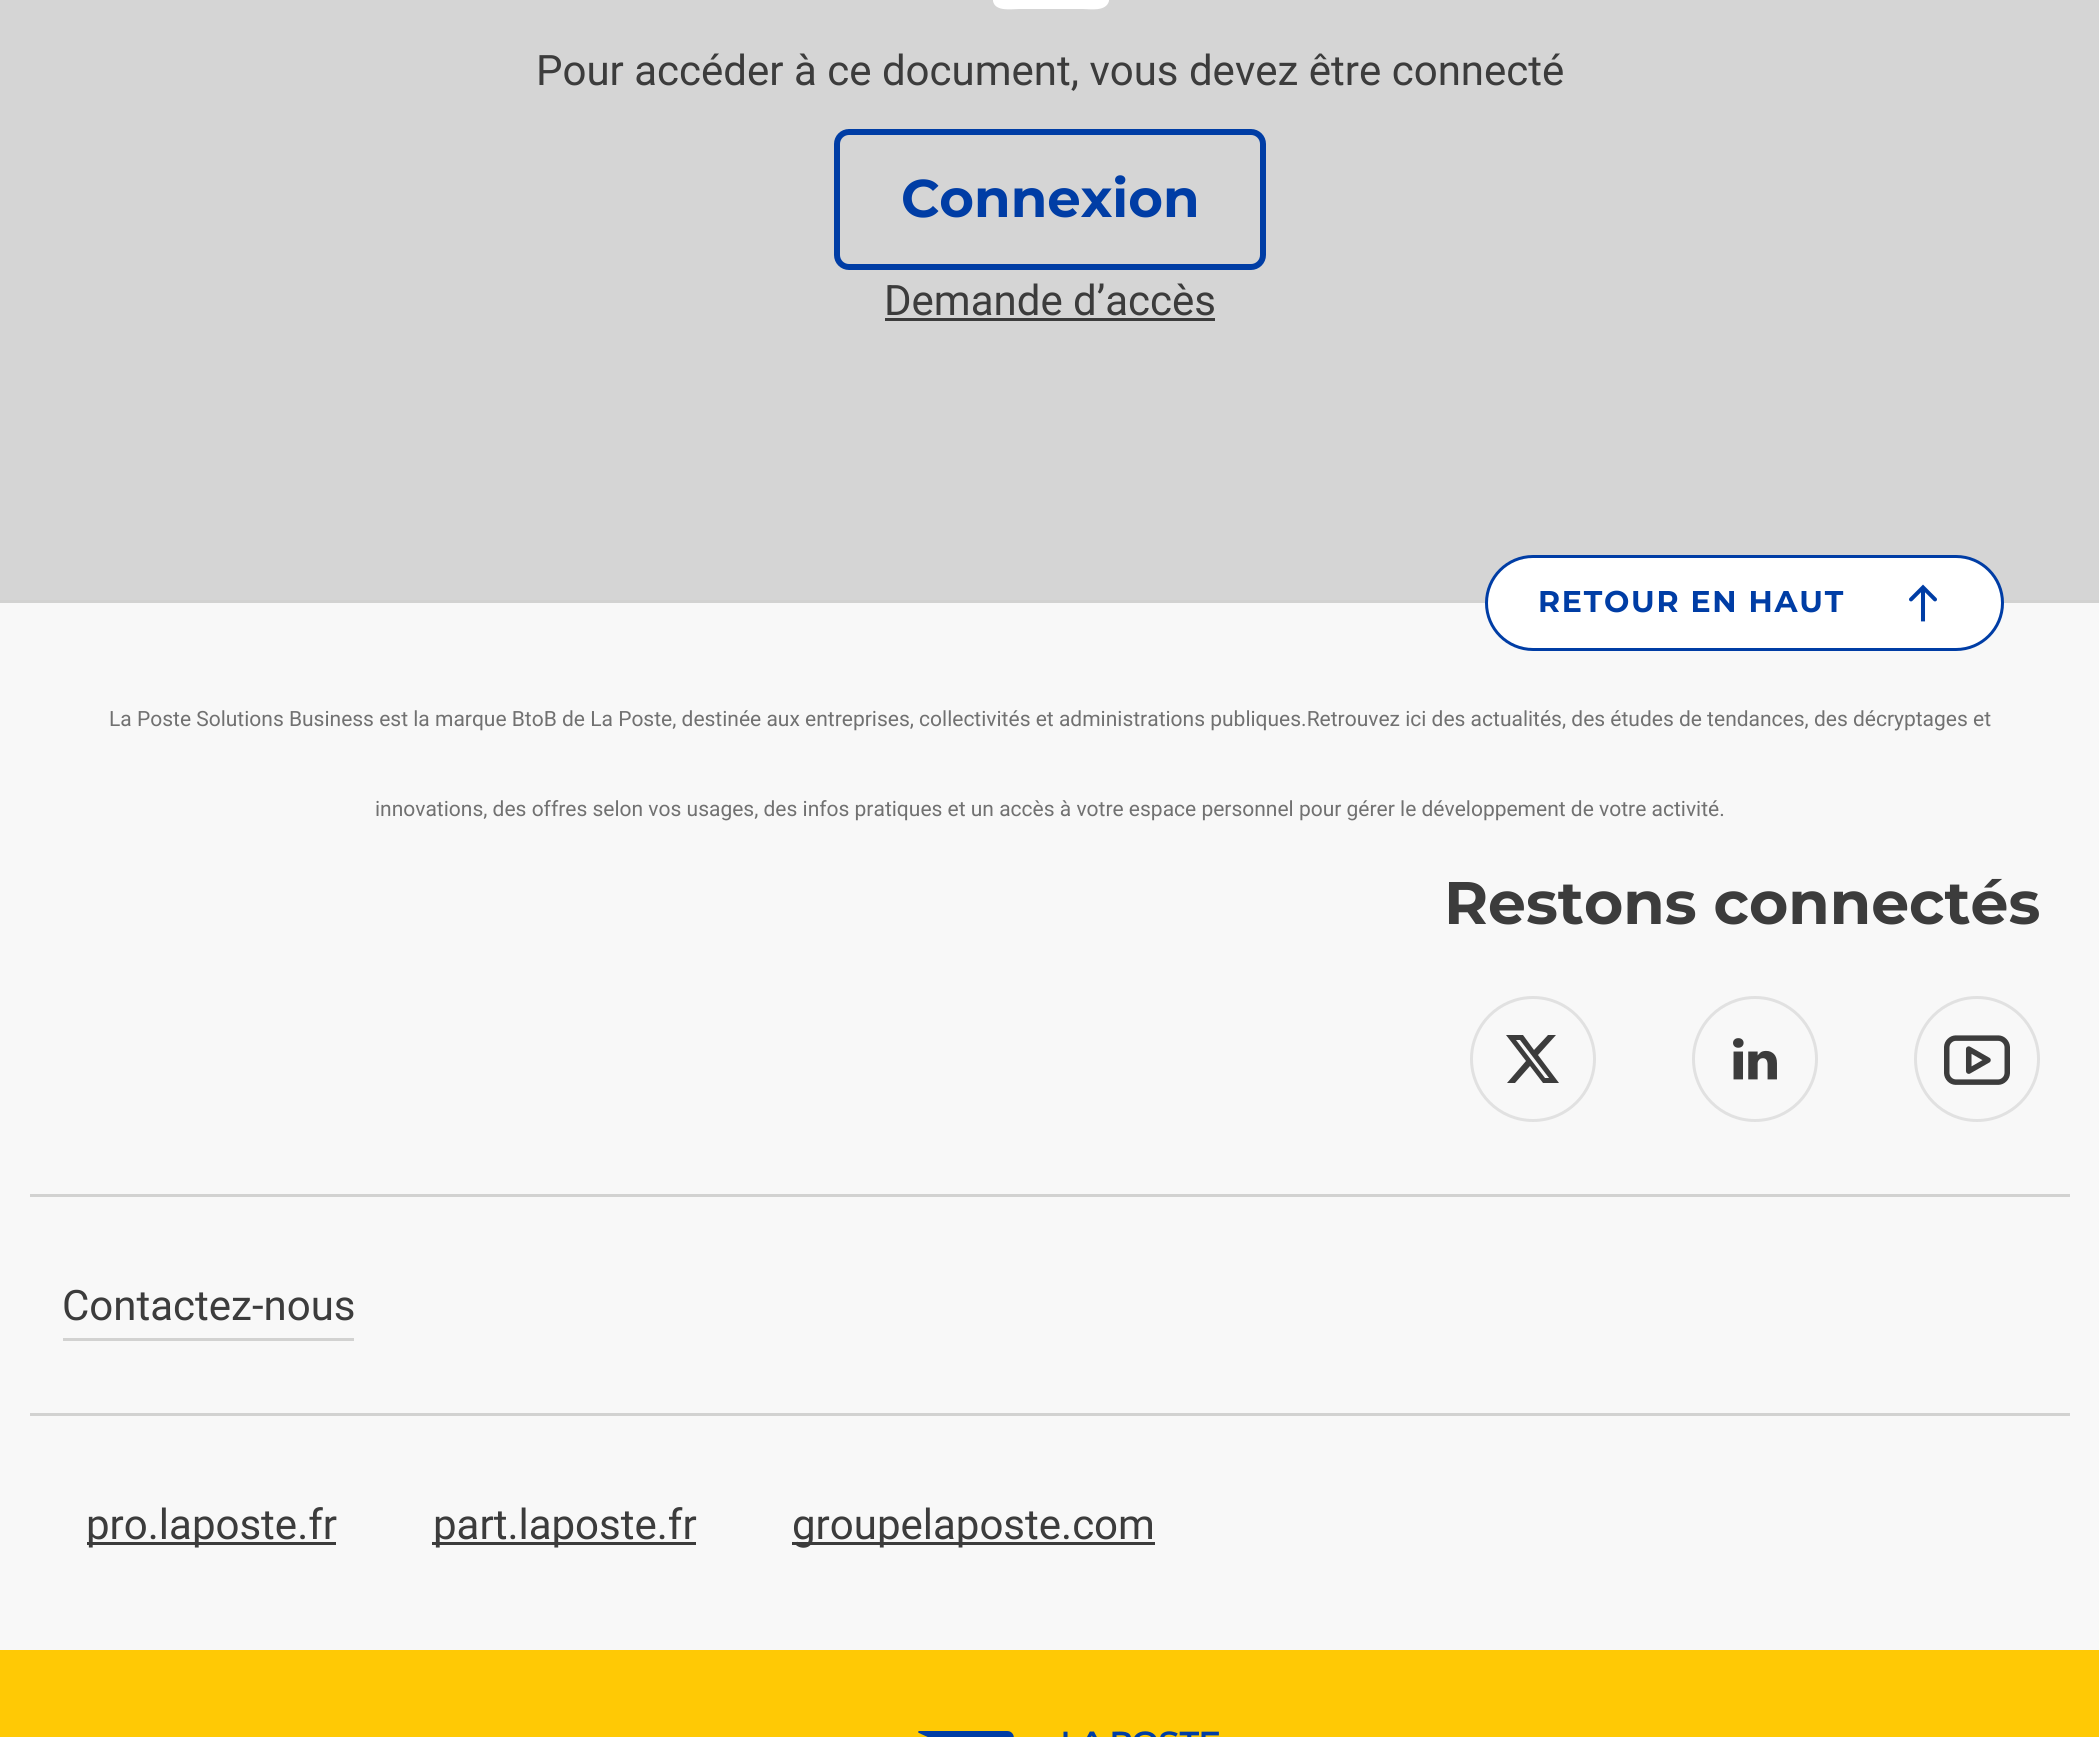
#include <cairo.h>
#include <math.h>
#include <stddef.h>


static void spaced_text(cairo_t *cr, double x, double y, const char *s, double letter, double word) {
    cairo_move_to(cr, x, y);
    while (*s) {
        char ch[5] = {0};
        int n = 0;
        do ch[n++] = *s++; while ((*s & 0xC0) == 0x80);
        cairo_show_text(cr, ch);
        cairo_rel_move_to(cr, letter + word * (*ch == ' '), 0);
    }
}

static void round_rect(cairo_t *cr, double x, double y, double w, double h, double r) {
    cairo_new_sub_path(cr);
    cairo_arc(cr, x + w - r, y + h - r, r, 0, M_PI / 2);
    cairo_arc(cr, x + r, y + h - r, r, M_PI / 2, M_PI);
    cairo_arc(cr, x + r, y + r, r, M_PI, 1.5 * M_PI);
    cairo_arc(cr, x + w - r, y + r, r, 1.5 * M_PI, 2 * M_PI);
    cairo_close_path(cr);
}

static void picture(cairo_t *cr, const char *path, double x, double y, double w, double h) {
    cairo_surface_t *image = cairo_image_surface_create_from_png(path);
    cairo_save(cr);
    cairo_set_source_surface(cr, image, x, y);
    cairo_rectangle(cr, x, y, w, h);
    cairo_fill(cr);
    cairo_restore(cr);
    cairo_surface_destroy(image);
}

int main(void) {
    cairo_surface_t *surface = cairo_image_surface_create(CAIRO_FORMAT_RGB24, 2099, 1737);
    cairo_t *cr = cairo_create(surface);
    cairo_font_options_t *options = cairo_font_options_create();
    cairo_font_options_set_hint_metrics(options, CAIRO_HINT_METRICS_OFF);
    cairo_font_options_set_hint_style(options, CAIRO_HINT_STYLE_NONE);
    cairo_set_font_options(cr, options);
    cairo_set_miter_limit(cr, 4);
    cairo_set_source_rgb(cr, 0.835, 0.835, 0.835);
    cairo_paint(cr);
    cairo_set_source_rgb(cr, 1, 1, 1);
    cairo_new_path(cr);
    cairo_move_to(cr, 1025, -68);
    cairo_line_to(cr, 1077, -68);
    cairo_curve_to(cr, 1077, -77, 1078, -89, 1075, -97);
    cairo_curve_to(cr, 1066, -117, 1038, -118, 1028, -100);
    cairo_curve_to(cr, 1023, -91, 1025, -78, 1025, -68);
    cairo_close_path(cr);
    cairo_move_to(cr, 1109, -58);
    cairo_line_to(cr, 1109, 1);
    cairo_curve_to(cr, 1106, 12, 1090, 9, 1083, 9);
    cairo_line_to(cr, 1019, 9);
    cairo_curve_to(cr, 1012, 9, 995, 12, 993, 1);
    cairo_line_to(cr, 993, -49);
    cairo_curve_to(cr, 993, -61, 992, -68, 1006, -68);
    cairo_curve_to(cr, 1006, -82, 1004, -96, 1011, -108);
    cairo_curve_to(cr, 1029, -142, 1078, -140, 1093, -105);
    cairo_curve_to(cr, 1097, -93, 1096, -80, 1096, -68);
    cairo_curve_to(cr, 1102, -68, 1109, -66, 1109, -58);
    cairo_close_path(cr);
    cairo_fill(cr);
    cairo_select_font_face(cr, "Roboto", CAIRO_FONT_SLANT_NORMAL, CAIRO_FONT_WEIGHT_NORMAL);
    cairo_set_font_size(cr, 42);
    cairo_set_source_rgb(cr, 0.235, 0.235, 0.235);
    cairo_move_to(cr, 536, 85);
    cairo_show_text(cr, "Pour accéder à ce document, vous devez être connecté");
    round_rect(cr, 837, 132, 426, 135, 12);
    cairo_set_source_rgb(cr, 0, 0.239, 0.647);
    cairo_set_line_width(cr, 6);
    cairo_stroke(cr);
    cairo_select_font_face(cr, "Montserrat", CAIRO_FONT_SLANT_NORMAL, CAIRO_FONT_WEIGHT_BOLD);
    cairo_set_font_size(cr, 53);
    cairo_move_to(cr, 901, 217);
    cairo_show_text(cr, "Connexion");
    cairo_select_font_face(cr, "Roboto", CAIRO_FONT_SLANT_NORMAL, CAIRO_FONT_WEIGHT_NORMAL);
    cairo_set_font_size(cr, 42);
    cairo_set_source_rgb(cr, 0.235, 0.235, 0.235);
    cairo_move_to(cr, 884, 315);
    cairo_show_text(cr, "Demande d’accès");
    cairo_rectangle(cr, 885, 318, 330, 3);
    cairo_fill(cr);
    cairo_set_source_rgb(cr, 0.969, 0.969, 0.969);
    cairo_rectangle(cr, 0, 603, 2099, 1047);
    cairo_fill(cr);
    cairo_set_source_rgb(cr, 0.824, 0.824, 0.82);
    cairo_rectangle(cr, 0, 600, 2099, 3);
    cairo_fill(cr);
    cairo_set_source_rgb(cr, 1, 1, 1);
    round_rect(cr, 1486.5, 556.5, 516, 93, 46.5);
    cairo_fill_preserve(cr);
    cairo_set_source_rgb(cr, 0, 0.239, 0.647);
    cairo_set_line_width(cr, 3);
    cairo_stroke(cr);
    cairo_select_font_face(cr, "Montserrat", CAIRO_FONT_SLANT_NORMAL, CAIRO_FONT_WEIGHT_BOLD);
    cairo_set_font_size(cr, 30);
    spaced_text(cr, 1538, 612, "RETOUR EN HAUT", 1.75, 0);
    picture(cr, "img1.png", 1909, 584, 28, 38);
    cairo_select_font_face(cr, "Roboto", CAIRO_FONT_SLANT_NORMAL, CAIRO_FONT_WEIGHT_NORMAL);
    cairo_set_font_size(cr, 21);
    cairo_set_source_rgb(cr, 0.443, 0.443, 0.443);
    cairo_move_to(cr, 109, 726);
    cairo_show_text(cr, "La Poste Solutions Business est la marque BtoB de La Poste, destinée aux entreprises, collectivités et administrations publiques.Retrouvez ici des actualités, des études de tendances, des décryptages et");
    cairo_move_to(cr, 375, 816);
    cairo_show_text(cr, "innovations, des offres selon vos usages, des infos pratiques et un accès à votre espace personnel pour gérer le développement de votre activité.");
    cairo_select_font_face(cr, "Montserrat", CAIRO_FONT_SLANT_NORMAL, CAIRO_FONT_WEIGHT_BOLD);
    cairo_set_font_size(cr, 60);
    cairo_set_source_rgb(cr, 0.235, 0.235, 0.235);
    cairo_move_to(cr, 1444, 924);
    cairo_show_text(cr, "Restons connectés");
    cairo_new_path(cr);
    cairo_arc(cr, 1533, 1059, 61.5, 0, 2 * M_PI);
    cairo_set_source_rgb(cr, 0.882, 0.882, 0.882);
    cairo_stroke(cr);
    cairo_set_source_rgb(cr, 0.235, 0.235, 0.235);
    cairo_new_path(cr);
    cairo_move_to(cr, 1548, 1035);
    cairo_line_to(cr, 1556, 1035);
    cairo_line_to(cr, 1538, 1055);
    cairo_line_to(cr, 1559, 1083);
    cairo_line_to(cr, 1543, 1083);
    cairo_line_to(cr, 1530, 1066);
    cairo_line_to(cr, 1515, 1083);
    cairo_line_to(cr, 1507, 1083);
    cairo_line_to(cr, 1526, 1061);
    cairo_line_to(cr, 1506, 1035);
    cairo_line_to(cr, 1523, 1035);
    cairo_line_to(cr, 1534, 1050);
    cairo_close_path(cr);
    cairo_move_to(cr, 1545, 1078);
    cairo_line_to(cr, 1549, 1078);
    cairo_line_to(cr, 1520, 1040);
    cairo_line_to(cr, 1516, 1040);
    cairo_close_path(cr);
    cairo_fill(cr);
    cairo_arc(cr, 1755, 1059, 61.5, 0, 2 * M_PI);
    cairo_set_source_rgb(cr, 0.882, 0.882, 0.882);
    cairo_stroke(cr);
    picture(cr, "img2.png", 1733, 1038, 44, 42);
    cairo_arc(cr, 1977, 1059, 61.5, 0, 2 * M_PI);
    cairo_stroke(cr);
    picture(cr, "img3.png", 1944, 1035, 66, 50);
    cairo_set_source_rgb(cr, 0.824, 0.824, 0.82);
    cairo_rectangle(cr, 30, 1194, 2040, 3);
    cairo_fill(cr);
    cairo_rectangle(cr, 30, 1413, 2040, 3);
    cairo_fill(cr);
    cairo_select_font_face(cr, "Roboto", CAIRO_FONT_SLANT_NORMAL, CAIRO_FONT_WEIGHT_NORMAL);
    cairo_set_font_size(cr, 42);
    cairo_set_source_rgb(cr, 0.235, 0.235, 0.235);
    cairo_move_to(cr, 62, 1320);
    cairo_show_text(cr, "Contactez-nous");
    cairo_set_source_rgb(cr, 0.824, 0.824, 0.82);
    cairo_rectangle(cr, 63, 1338, 291, 3);
    cairo_fill(cr);
    cairo_set_source_rgb(cr, 0.235, 0.235, 0.235);
    cairo_rectangle(cr, 87, 1542, 249, 3);
    cairo_fill(cr);
    cairo_move_to(cr, 86, 1539);
    cairo_show_text(cr, "pro.laposte.fr");
    cairo_rectangle(cr, 432, 1542, 264, 3);
    cairo_fill(cr);
    cairo_move_to(cr, 433, 1539);
    cairo_show_text(cr, "part.laposte.fr");
    cairo_rectangle(cr, 792, 1542, 363, 3);
    cairo_fill(cr);
    cairo_move_to(cr, 792, 1539);
    cairo_show_text(cr, "groupelaposte.com");
    cairo_set_source_rgb(cr, 1, 0.788, 0.02);
    cairo_rectangle(cr, 0, 1650, 2099, 87);
    cairo_fill(cr);
    picture(cr, "img4.png", 918, 1731, 301, 6);
    cairo_surface_write_to_png(surface, "page.png");
    cairo_font_options_destroy(options);
    cairo_destroy(cr);
    cairo_surface_destroy(surface);
    return 0;
}
